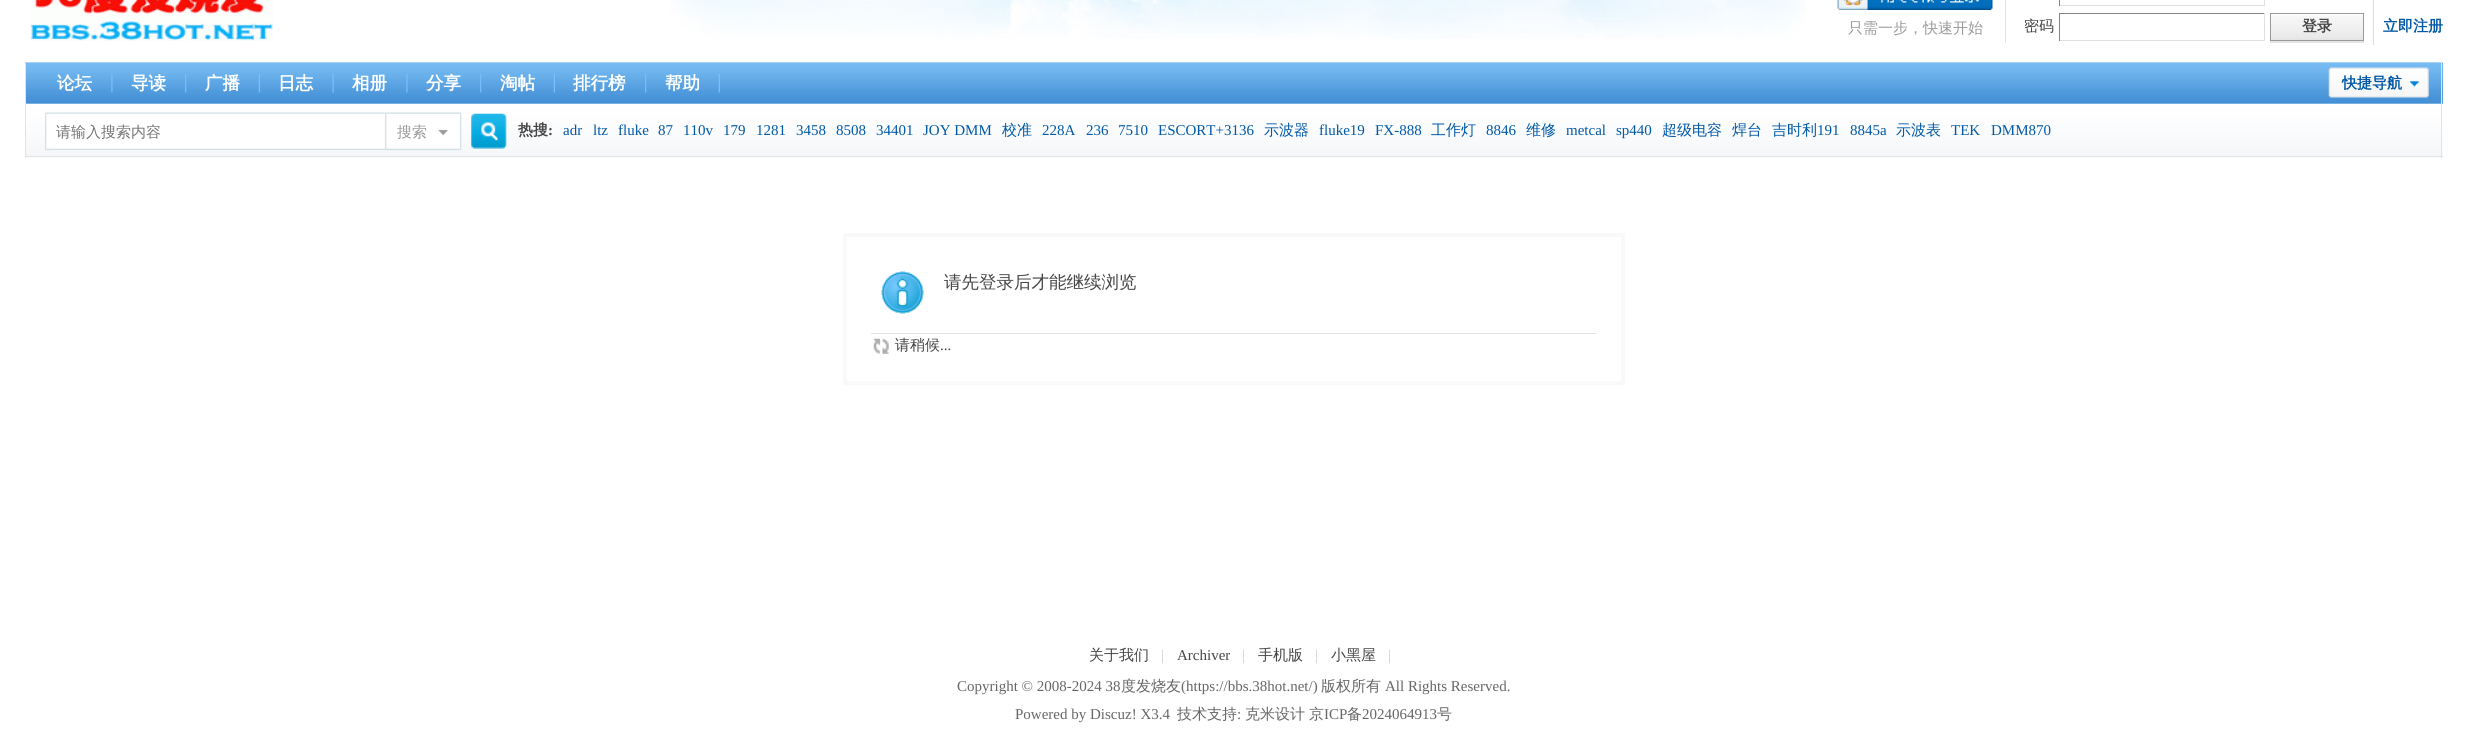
#include <cairo.h>
#include <math.h>
#include <stddef.h>


static void picture(cairo_t *cr, const char *path, double x, double y, double w, double h) {
    cairo_surface_t *image = cairo_image_surface_create_from_png(path);
    cairo_save(cr);
    cairo_set_source_surface(cr, image, x, y);
    cairo_rectangle(cr, x, y, w, h);
    cairo_fill(cr);
    cairo_restore(cr);
    cairo_surface_destroy(image);
}

int main(void) {
    cairo_surface_t *surface = cairo_image_surface_create(CAIRO_FORMAT_RGB24, 2467, 752);
    cairo_t *cr = cairo_create(surface);
    cairo_font_options_t *options = cairo_font_options_create();
    cairo_font_options_set_hint_metrics(options, CAIRO_HINT_METRICS_OFF);
    cairo_font_options_set_hint_style(options, CAIRO_HINT_STYLE_NONE);
    cairo_set_font_options(cr, options);
    cairo_set_miter_limit(cr, 4);
    cairo_set_source_rgb(cr, 1, 1, 1);
    cairo_paint(cr);
    picture(cr, "img1.png", 670, 0, 1136, 39);
    picture(cr, "img2.png", 30, 0, 243, 41);
    cairo_set_source_rgb(cr, 0.89, 0.89, 0.89);
    cairo_rectangle(cr, 2005, 0, 1, 43);
    cairo_fill(cr);
    picture(cr, "img3.png", 1837, 0, 156, 10);
    cairo_select_font_face(cr, "WenQuanYi Zen Hei Medium", CAIRO_FONT_SLANT_NORMAL, CAIRO_FONT_WEIGHT_NORMAL);
    cairo_set_font_size(cr, 15);
    cairo_set_source_rgb(cr, 0.6, 0.6, 0.6);
    cairo_move_to(cr, 1848, 33);
    cairo_show_text(cr, "只需一步，快速开始");
    cairo_set_source_rgb(cr, 0.878, 0.878, 0.878);
    cairo_rectangle(cr, 2264, 0, 1, 6);
    cairo_fill(cr);
    cairo_rectangle(cr, 2059, 5, 206, 1);
    cairo_fill(cr);
    cairo_set_source_rgb(cr, 0.518, 0.518, 0.518);
    cairo_rectangle(cr, 2059, 0, 1, 6);
    cairo_fill(cr);
    cairo_set_source_rgb(cr, 0.267, 0.267, 0.267);
    cairo_move_to(cr, 2024, 31);
    cairo_show_text(cr, "密码");
    cairo_set_source_rgb(cr, 0.518, 0.518, 0.518);
    cairo_rectangle(cr, 2059, 13, 206, 1);
    cairo_fill(cr);
    cairo_set_source_rgb(cr, 0.878, 0.878, 0.878);
    cairo_rectangle(cr, 2264, 13, 1, 28);
    cairo_fill(cr);
    cairo_rectangle(cr, 2059, 40, 206, 1);
    cairo_fill(cr);
    cairo_set_source_rgb(cr, 0.518, 0.518, 0.518);
    cairo_rectangle(cr, 2059, 13, 1, 28);
    cairo_fill(cr);
    cairo_set_source_rgb(cr, 0.867, 0.867, 0.867);
    cairo_rectangle(cr, 2373, 0, 1, 45);
    cairo_fill(cr);
    cairo_set_source_rgb(cr, 0.898, 0.898, 0.898);
    cairo_new_path(cr);
    cairo_move_to(cr, 2270, 41);
    cairo_line_to(cr, 2270, 43);
    cairo_line_to(cr, 2364, 43);
    cairo_line_to(cr, 2364, 14);
    cairo_line_to(cr, 2364, 41);
    cairo_close_path(cr);
    cairo_fill(cr);
    cairo_rectangle(cr, 2271, 38, 92, 2);
    cairo_fill(cr);
    picture(cr, "img4.png", 2271, 14, 92, 24);
    cairo_rectangle(cr, 2270.5, 13.5, 93, 27);
    cairo_set_source_rgb(cr, 0.6, 0.6, 0.6);
    cairo_set_line_width(cr, 1);
    cairo_stroke(cr);
    cairo_select_font_face(cr, "WenQuanYi Zen Hei", CAIRO_FONT_SLANT_NORMAL, CAIRO_FONT_WEIGHT_BOLD);
    cairo_set_source_rgb(cr, 0.267, 0.267, 0.267);
    cairo_move_to(cr, 2302, 31);
    cairo_show_text(cr, "登录");
    cairo_set_source_rgb(cr, 0, 0.345, 0.651);
    cairo_move_to(cr, 2383, 31);
    cairo_show_text(cr, "立即注册");
    cairo_set_source_rgb(cr, 0.388, 0.671, 0.906);
    cairo_rectangle(cr, 26, 63, 2417, 41);
    cairo_fill(cr);
    picture(cr, "img5.png", 25, 62, 2418, 42);
    cairo_set_source_rgb(cr, 0.89, 0.89, 0.89);
    cairo_rectangle(cr, 2441, 63, 1, 41);
    cairo_fill(cr);
    cairo_rectangle(cr, 25, 63, 1, 41);
    cairo_fill(cr);
    picture(cr, "img6.png", 111, 74, 2, 19);
    cairo_set_font_size(cr, 17.5);
    cairo_set_source_rgb(cr, 1, 1, 1);
    cairo_move_to(cr, 57, 89);
    cairo_show_text(cr, "论坛");
    picture(cr, "img7.png", 185, 73, 2, 20);
    cairo_move_to(cr, 131, 89);
    cairo_show_text(cr, "导读");
    picture(cr, "img8.png", 258, 73, 2, 20);
    cairo_move_to(cr, 205, 89);
    cairo_show_text(cr, "广播");
    picture(cr, "img9.png", 332, 74, 2, 19);
    cairo_move_to(cr, 278, 89);
    cairo_show_text(cr, "日志");
    picture(cr, "img6.png", 406, 74, 2, 19);
    cairo_move_to(cr, 352, 89);
    cairo_show_text(cr, "相册");
    picture(cr, "img7.png", 480, 73, 2, 20);
    cairo_move_to(cr, 426, 89);
    cairo_show_text(cr, "分享");
    picture(cr, "img8.png", 553, 73, 2, 20);
    cairo_move_to(cr, 500, 89);
    cairo_show_text(cr, "淘帖");
    picture(cr, "img7.png", 645, 73, 2, 20);
    cairo_move_to(cr, 573, 89);
    cairo_show_text(cr, "排行榜");
    picture(cr, "img8.png", 718, 73, 2, 20);
    cairo_move_to(cr, 665, 89);
    cairo_show_text(cr, "帮助");
    picture(cr, "img10.png", 2328, 67, 101, 31);
    cairo_set_font_size(cr, 15);
    cairo_set_source_rgb(cr, 0, 0.345, 0.651);
    cairo_move_to(cr, 2342, 88);
    cairo_show_text(cr, "快捷导航");
    picture(cr, "img11.png", 25, 103, 2418, 55);
    cairo_set_source_rgb(cr, 0.89, 0.89, 0.89);
    cairo_rectangle(cr, 2441, 104, 1, 54);
    cairo_fill(cr);
    cairo_rectangle(cr, 25, 156, 2418, 1);
    cairo_fill(cr);
    cairo_rectangle(cr, 25, 104, 1, 54);
    cairo_fill(cr);
    picture(cr, "img12.png", 45, 112, 8, 39);
    picture(cr, "img13.png", 52, 112, 333, 38);
    cairo_select_font_face(cr, "WenQuanYi Zen Hei Medium", CAIRO_FONT_SLANT_NORMAL, CAIRO_FONT_WEIGHT_NORMAL);
    cairo_set_source_rgb(cr, 0.459, 0.459, 0.459);
    cairo_move_to(cr, 56, 137);
    cairo_show_text(cr, "请输入搜索内容");
    picture(cr, "img14.png", 385, 112, 77, 39);
    cairo_set_source_rgb(cr, 0.6, 0.6, 0.6);
    cairo_move_to(cr, 397, 137);
    cairo_show_text(cr, "搜索");
    picture(cr, "img15.png", 471, 113, 36, 36);
    cairo_select_font_face(cr, "WenQuanYi Zen Hei", CAIRO_FONT_SLANT_NORMAL, CAIRO_FONT_WEIGHT_BOLD);
    cairo_set_source_rgb(cr, 0.267, 0.267, 0.267);
    cairo_move_to(cr, 518, 135);
    cairo_show_text(cr, "热搜");
    cairo_select_font_face(cr, "Liberation Serif", CAIRO_FONT_SLANT_NORMAL, CAIRO_FONT_WEIGHT_BOLD);
    cairo_move_to(cr, 548, 135);
    cairo_show_text(cr, ":");
    cairo_select_font_face(cr, "Liberation Serif", CAIRO_FONT_SLANT_NORMAL, CAIRO_FONT_WEIGHT_NORMAL);
    cairo_set_source_rgb(cr, 0, 0.345, 0.651);
    cairo_move_to(cr, 563, 135);
    cairo_show_text(cr, "adr");
    cairo_move_to(cr, 593, 135);
    cairo_show_text(cr, "ltz");
    cairo_move_to(cr, 618, 135);
    cairo_show_text(cr, "fluke");
    cairo_move_to(cr, 658, 135);
    cairo_show_text(cr, "87");
    cairo_move_to(cr, 683, 135);
    cairo_show_text(cr, "110v");
    cairo_move_to(cr, 723, 135);
    cairo_show_text(cr, "179");
    cairo_move_to(cr, 756, 135);
    cairo_show_text(cr, "1281");
    cairo_move_to(cr, 796, 135);
    cairo_show_text(cr, "3458");
    cairo_move_to(cr, 836, 135);
    cairo_show_text(cr, "8508");
    cairo_move_to(cr, 876, 135);
    cairo_show_text(cr, "34401");
    cairo_move_to(cr, 923, 135);
    cairo_show_text(cr, "JOY DMM");
    cairo_select_font_face(cr, "WenQuanYi Zen Hei Medium", CAIRO_FONT_SLANT_NORMAL, CAIRO_FONT_WEIGHT_NORMAL);
    cairo_move_to(cr, 1002, 135);
    cairo_show_text(cr, "校准");
    cairo_select_font_face(cr, "Liberation Serif", CAIRO_FONT_SLANT_NORMAL, CAIRO_FONT_WEIGHT_NORMAL);
    cairo_move_to(cr, 1042, 135);
    cairo_show_text(cr, "228A");
    cairo_move_to(cr, 1086, 135);
    cairo_show_text(cr, "236");
    cairo_move_to(cr, 1118, 135);
    cairo_show_text(cr, "7510");
    cairo_move_to(cr, 1158, 135);
    cairo_show_text(cr, "ESCORT+3136");
    cairo_select_font_face(cr, "WenQuanYi Zen Hei Medium", CAIRO_FONT_SLANT_NORMAL, CAIRO_FONT_WEIGHT_NORMAL);
    cairo_move_to(cr, 1264, 135);
    cairo_show_text(cr, "示波器");
    cairo_select_font_face(cr, "Liberation Serif", CAIRO_FONT_SLANT_NORMAL, CAIRO_FONT_WEIGHT_NORMAL);
    cairo_move_to(cr, 1319, 135);
    cairo_show_text(cr, "fluke19");
    cairo_move_to(cr, 1375, 135);
    cairo_show_text(cr, "FX-888");
    cairo_select_font_face(cr, "WenQuanYi Zen Hei Medium", CAIRO_FONT_SLANT_NORMAL, CAIRO_FONT_WEIGHT_NORMAL);
    cairo_move_to(cr, 1431, 135);
    cairo_show_text(cr, "工作灯");
    cairo_select_font_face(cr, "Liberation Serif", CAIRO_FONT_SLANT_NORMAL, CAIRO_FONT_WEIGHT_NORMAL);
    cairo_move_to(cr, 1486, 135);
    cairo_show_text(cr, "8846");
    cairo_select_font_face(cr, "WenQuanYi Zen Hei Medium", CAIRO_FONT_SLANT_NORMAL, CAIRO_FONT_WEIGHT_NORMAL);
    cairo_move_to(cr, 1526, 135);
    cairo_show_text(cr, "维修");
    cairo_select_font_face(cr, "Liberation Serif", CAIRO_FONT_SLANT_NORMAL, CAIRO_FONT_WEIGHT_NORMAL);
    cairo_move_to(cr, 1566, 135);
    cairo_show_text(cr, "metcal");
    cairo_move_to(cr, 1616, 135);
    cairo_show_text(cr, "sp440");
    cairo_select_font_face(cr, "WenQuanYi Zen Hei Medium", CAIRO_FONT_SLANT_NORMAL, CAIRO_FONT_WEIGHT_NORMAL);
    cairo_move_to(cr, 1662, 135);
    cairo_show_text(cr, "超级电容");
    cairo_move_to(cr, 1732, 135);
    cairo_show_text(cr, "焊台");
    cairo_move_to(cr, 1772, 135);
    cairo_show_text(cr, "吉时利");
    cairo_select_font_face(cr, "Liberation Serif", CAIRO_FONT_SLANT_NORMAL, CAIRO_FONT_WEIGHT_NORMAL);
    cairo_move_to(cr, 1817, 135);
    cairo_show_text(cr, "191");
    cairo_move_to(cr, 1850, 135);
    cairo_show_text(cr, "8845a");
    cairo_select_font_face(cr, "WenQuanYi Zen Hei Medium", CAIRO_FONT_SLANT_NORMAL, CAIRO_FONT_WEIGHT_NORMAL);
    cairo_move_to(cr, 1896, 135);
    cairo_show_text(cr, "示波表");
    cairo_select_font_face(cr, "Liberation Serif", CAIRO_FONT_SLANT_NORMAL, CAIRO_FONT_WEIGHT_NORMAL);
    cairo_move_to(cr, 1951, 135);
    cairo_show_text(cr, "TEK");
    cairo_move_to(cr, 1991, 135);
    cairo_show_text(cr, "DMM870");
    cairo_rectangle(cr, 845, 235, 778, 148);
    cairo_set_source_rgb(cr, 0.976, 0.976, 0.976);
    cairo_set_line_width(cr, 4);
    cairo_stroke(cr);
    picture(cr, "img16.png", 881, 271, 43, 43);
    cairo_select_font_face(cr, "WenQuanYi Zen Hei Medium", CAIRO_FONT_SLANT_NORMAL, CAIRO_FONT_WEIGHT_NORMAL);
    cairo_set_font_size(cr, 17.5);
    cairo_set_source_rgb(cr, 0.267, 0.267, 0.267);
    cairo_move_to(cr, 944, 288);
    cairo_show_text(cr, "请先登录后才能继续浏览");
    cairo_set_source_rgb(cr, 0.89, 0.89, 0.89);
    cairo_rectangle(cr, 871, 333, 725, 1);
    cairo_fill(cr);
    picture(cr, "img17.png", 873, 338, 16, 16);
    cairo_set_font_size(cr, 15);
    cairo_set_source_rgb(cr, 0.267, 0.267, 0.267);
    cairo_move_to(cr, 895, 350);
    cairo_show_text(cr, "请稍候");
    cairo_select_font_face(cr, "Liberation Serif", CAIRO_FONT_SLANT_NORMAL, CAIRO_FONT_WEIGHT_NORMAL);
    cairo_move_to(cr, 940, 350);
    cairo_show_text(cr, "...");
    cairo_select_font_face(cr, "WenQuanYi Zen Hei Medium", CAIRO_FONT_SLANT_NORMAL, CAIRO_FONT_WEIGHT_NORMAL);
    cairo_move_to(cr, 1089, 660);
    cairo_show_text(cr, "关于我们");
    cairo_select_font_face(cr, "Liberation Serif", CAIRO_FONT_SLANT_NORMAL, CAIRO_FONT_WEIGHT_NORMAL);
    cairo_set_source_rgb(cr, 0.804, 0.804, 0.804);
    cairo_move_to(cr, 1161, 660);
    cairo_show_text(cr, "|");
    cairo_set_source_rgb(cr, 0.267, 0.267, 0.267);
    cairo_move_to(cr, 1177, 660);
    cairo_show_text(cr, "Archiver");
    cairo_set_source_rgb(cr, 0.804, 0.804, 0.804);
    cairo_move_to(cr, 1242, 660);
    cairo_show_text(cr, "|");
    cairo_select_font_face(cr, "WenQuanYi Zen Hei Medium", CAIRO_FONT_SLANT_NORMAL, CAIRO_FONT_WEIGHT_NORMAL);
    cairo_set_source_rgb(cr, 0.267, 0.267, 0.267);
    cairo_move_to(cr, 1258, 660);
    cairo_show_text(cr, "手机版");
    cairo_select_font_face(cr, "Liberation Serif", CAIRO_FONT_SLANT_NORMAL, CAIRO_FONT_WEIGHT_NORMAL);
    cairo_set_source_rgb(cr, 0.804, 0.804, 0.804);
    cairo_move_to(cr, 1315, 660);
    cairo_show_text(cr, "|");
    cairo_select_font_face(cr, "WenQuanYi Zen Hei Medium", CAIRO_FONT_SLANT_NORMAL, CAIRO_FONT_WEIGHT_NORMAL);
    cairo_set_source_rgb(cr, 0.267, 0.267, 0.267);
    cairo_move_to(cr, 1331, 660);
    cairo_show_text(cr, "小黑屋");
    cairo_select_font_face(cr, "Liberation Serif", CAIRO_FONT_SLANT_NORMAL, CAIRO_FONT_WEIGHT_NORMAL);
    cairo_set_source_rgb(cr, 0.804, 0.804, 0.804);
    cairo_move_to(cr, 1388, 660);
    cairo_show_text(cr, "|");
    cairo_set_source_rgb(cr, 0.4, 0.4, 0.4);
    cairo_move_to(cr, 957, 691);
    cairo_show_text(cr, "Copyright © 2008-2024 38");
    cairo_select_font_face(cr, "WenQuanYi Zen Hei Medium", CAIRO_FONT_SLANT_NORMAL, CAIRO_FONT_WEIGHT_NORMAL);
    cairo_move_to(cr, 1121, 691);
    cairo_show_text(cr, "度发烧友");
    cairo_select_font_face(cr, "Liberation Serif", CAIRO_FONT_SLANT_NORMAL, CAIRO_FONT_WEIGHT_NORMAL);
    cairo_move_to(cr, 1181, 691);
    cairo_show_text(cr, "(https://bbs.38hot.net/)");
    cairo_select_font_face(cr, "WenQuanYi Zen Hei Medium", CAIRO_FONT_SLANT_NORMAL, CAIRO_FONT_WEIGHT_NORMAL);
    cairo_move_to(cr, 1321, 691);
    cairo_show_text(cr, "版权所有");
    cairo_select_font_face(cr, "Liberation Serif", CAIRO_FONT_SLANT_NORMAL, CAIRO_FONT_WEIGHT_NORMAL);
    cairo_move_to(cr, 1385, 691);
    cairo_show_text(cr, "All Rights Reserved.");
    cairo_move_to(cr, 1015, 719);
    cairo_show_text(cr, "Powered by Discuz! X3.4");
    cairo_select_font_face(cr, "WenQuanYi Zen Hei Medium", CAIRO_FONT_SLANT_NORMAL, CAIRO_FONT_WEIGHT_NORMAL);
    cairo_move_to(cr, 1177, 719);
    cairo_show_text(cr, "技术支持");
    cairo_select_font_face(cr, "Liberation Serif", CAIRO_FONT_SLANT_NORMAL, CAIRO_FONT_WEIGHT_NORMAL);
    cairo_move_to(cr, 1237, 719);
    cairo_show_text(cr, ":");
    cairo_select_font_face(cr, "WenQuanYi Zen Hei Medium", CAIRO_FONT_SLANT_NORMAL, CAIRO_FONT_WEIGHT_NORMAL);
    cairo_move_to(cr, 1245, 719);
    cairo_show_text(cr, "克米设计");
    cairo_move_to(cr, 1309, 719);
    cairo_show_text(cr, "京");
    cairo_select_font_face(cr, "Liberation Serif", CAIRO_FONT_SLANT_NORMAL, CAIRO_FONT_WEIGHT_NORMAL);
    cairo_move_to(cr, 1324, 719);
    cairo_show_text(cr, "ICP");
    cairo_select_font_face(cr, "WenQuanYi Zen Hei Medium", CAIRO_FONT_SLANT_NORMAL, CAIRO_FONT_WEIGHT_NORMAL);
    cairo_move_to(cr, 1347, 719);
    cairo_show_text(cr, "备");
    cairo_select_font_face(cr, "Liberation Serif", CAIRO_FONT_SLANT_NORMAL, CAIRO_FONT_WEIGHT_NORMAL);
    cairo_move_to(cr, 1362, 719);
    cairo_show_text(cr, "2024064913");
    cairo_select_font_face(cr, "WenQuanYi Zen Hei Medium", CAIRO_FONT_SLANT_NORMAL, CAIRO_FONT_WEIGHT_NORMAL);
    cairo_move_to(cr, 1437, 719);
    cairo_show_text(cr, "号");
    cairo_surface_write_to_png(surface, "page.png");
    cairo_font_options_destroy(options);
    cairo_destroy(cr);
    cairo_surface_destroy(surface);
    return 0;
}
